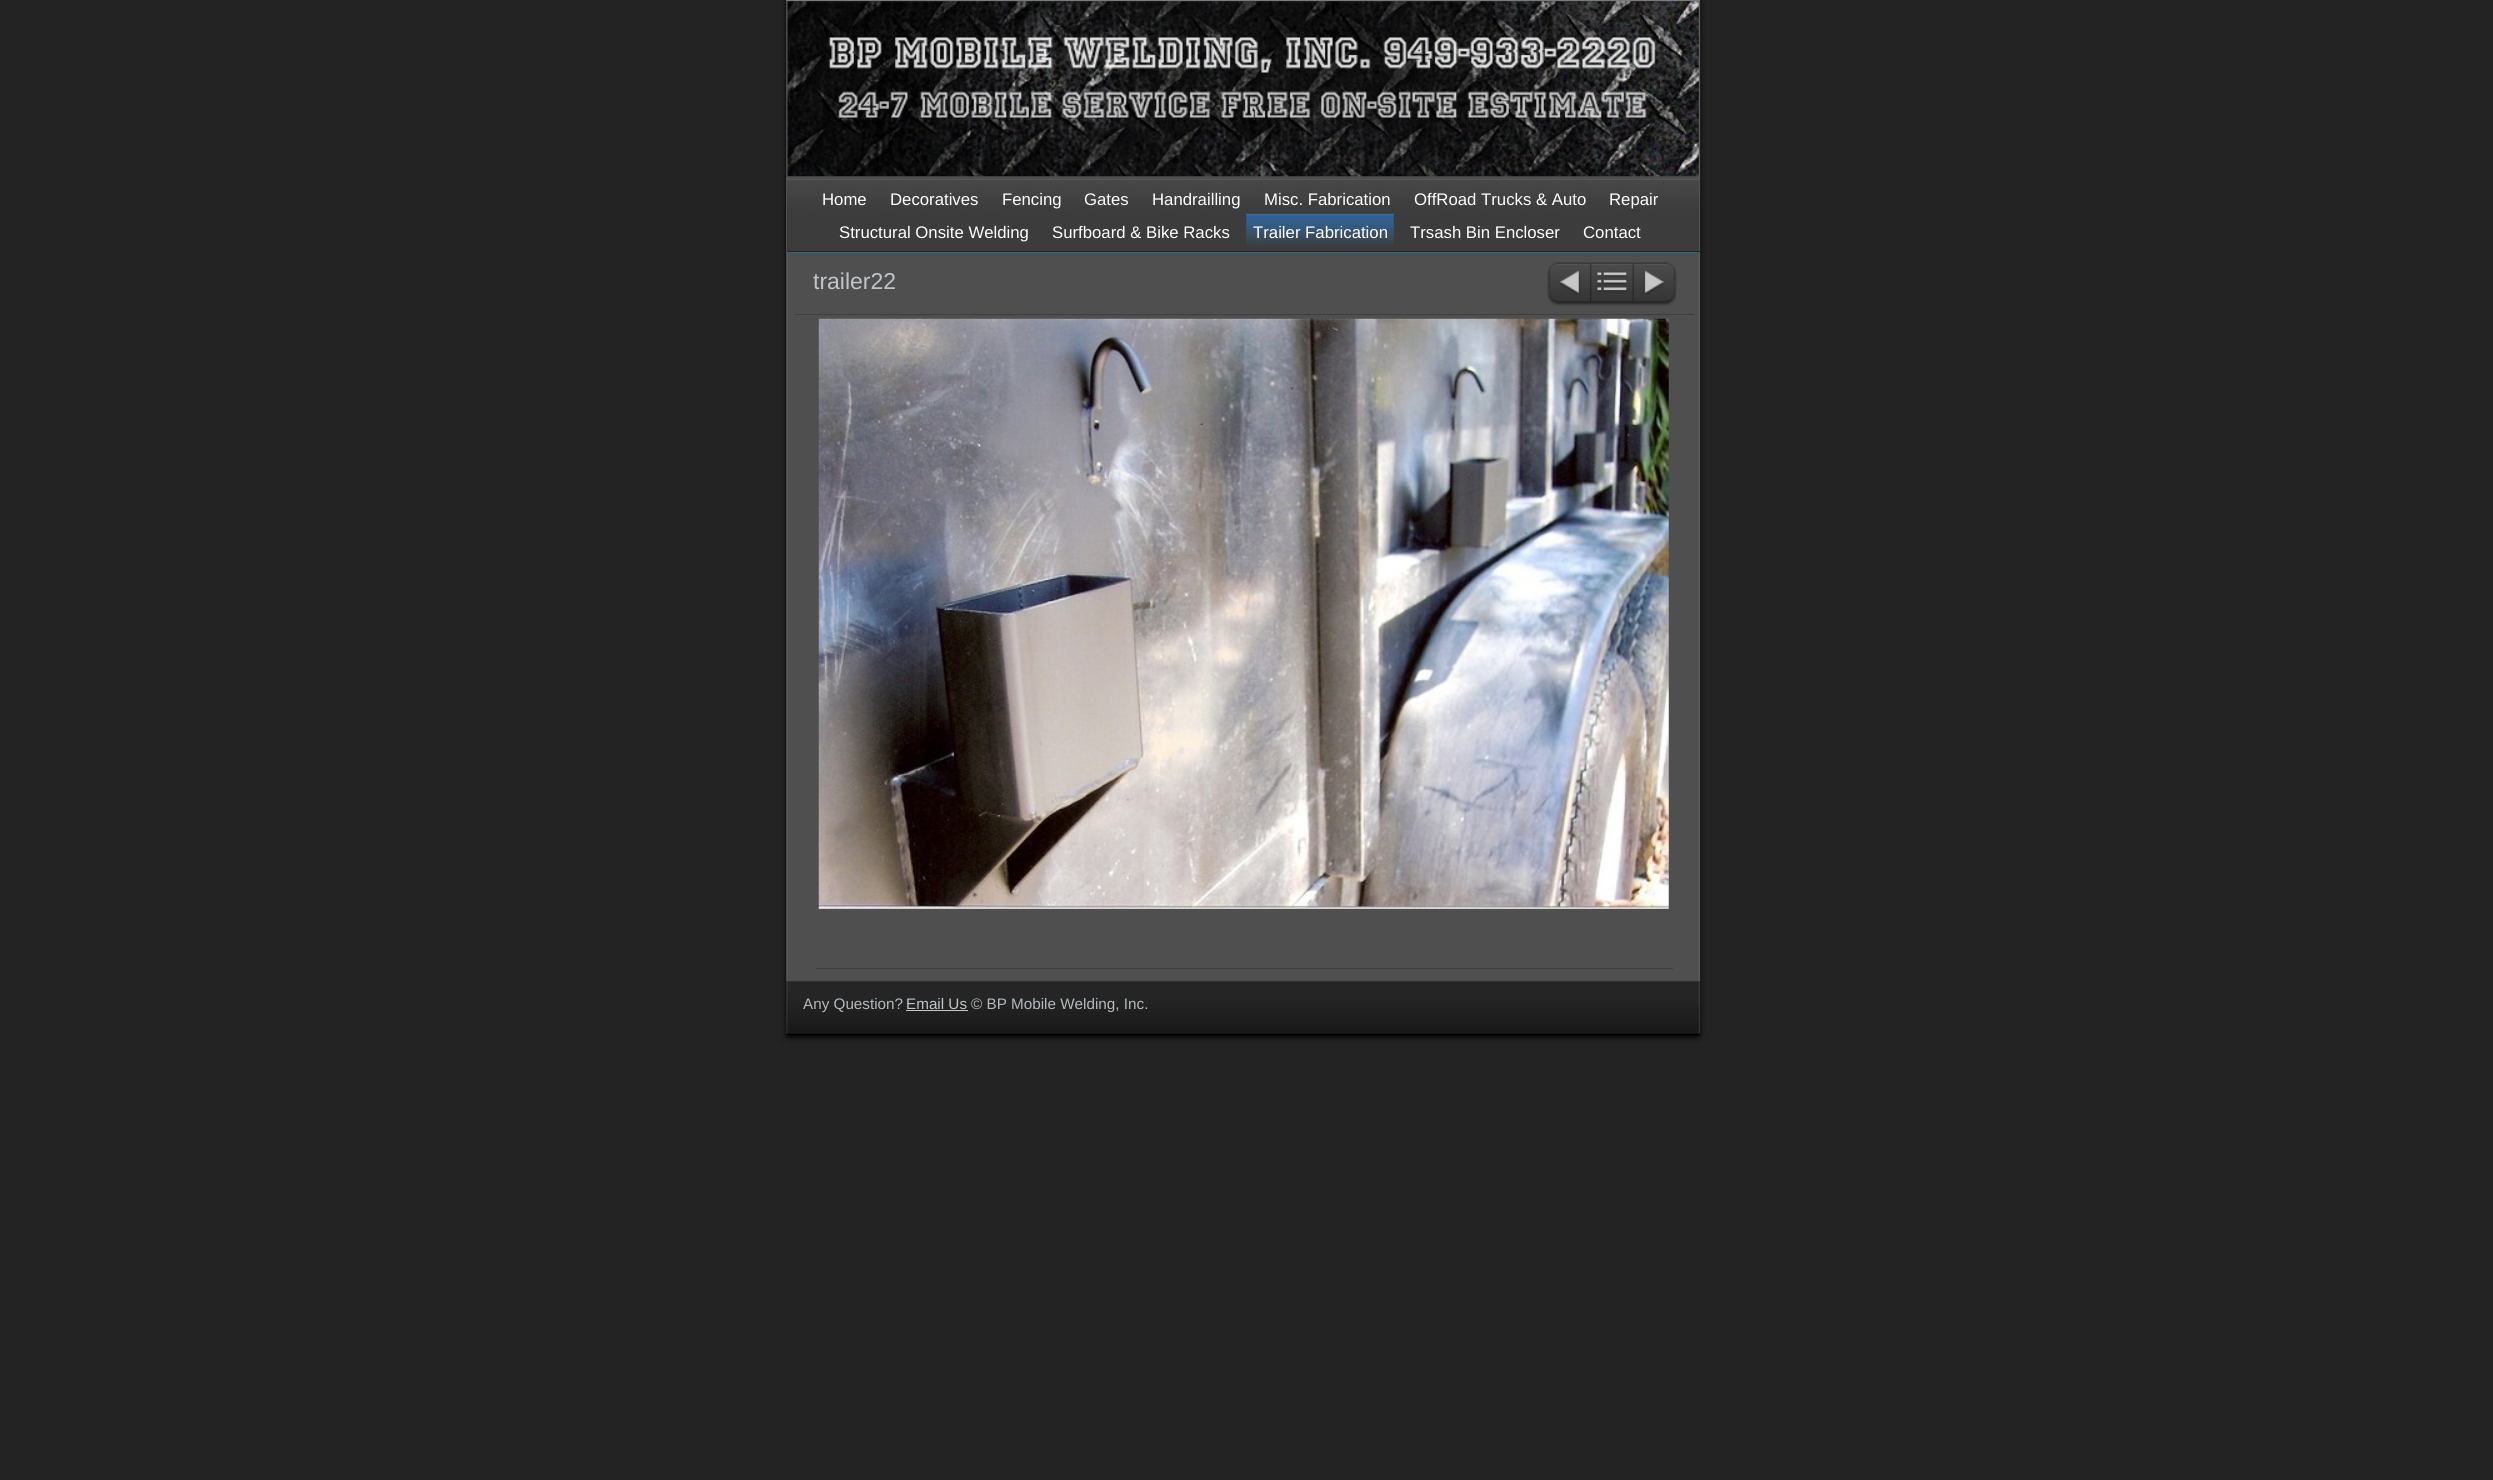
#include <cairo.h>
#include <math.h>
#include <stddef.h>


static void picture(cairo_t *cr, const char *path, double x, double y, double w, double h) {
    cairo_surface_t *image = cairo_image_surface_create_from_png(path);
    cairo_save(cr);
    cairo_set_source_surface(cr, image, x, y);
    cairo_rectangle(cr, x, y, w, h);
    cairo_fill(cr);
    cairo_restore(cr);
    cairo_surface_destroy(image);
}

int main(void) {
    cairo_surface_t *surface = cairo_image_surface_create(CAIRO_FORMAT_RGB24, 2493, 1480);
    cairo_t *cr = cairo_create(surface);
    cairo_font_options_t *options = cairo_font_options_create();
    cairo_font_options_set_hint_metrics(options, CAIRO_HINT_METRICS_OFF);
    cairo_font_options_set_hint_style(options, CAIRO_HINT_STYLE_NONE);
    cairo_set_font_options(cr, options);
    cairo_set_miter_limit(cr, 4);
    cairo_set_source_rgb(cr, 0.137, 0.137, 0.137);
    cairo_paint(cr);
    picture(cr, "img1.png", 765, 0, 964, 1045);
    picture(cr, "img2.png", 787, 1, 912, 176);
    cairo_set_source_rgb(cr, 0.478, 0.478, 0.478);
    cairo_rectangle(cr, 786, 0, 914, 1);
    cairo_fill(cr);
    cairo_set_source_rgb(cr, 0.039, 0.596, 0.824);
    cairo_rectangle(cr, 787, 252, 912, 1);
    cairo_fill(cr);
    picture(cr, "img3.png", 787, 180, 912, 73);
    cairo_set_source_rgb(cr, 0.345, 0.345, 0.345);
    cairo_rectangle(cr, 786, 179, 914, 1);
    cairo_fill(cr);
    cairo_set_source_rgb(cr, 0.322, 0.322, 0.322);
    cairo_rectangle(cr, 1699, 179, 1, 74);
    cairo_fill(cr);
    cairo_set_source_rgb(cr, 0.137, 0.137, 0.137);
    cairo_rectangle(cr, 786, 251, 914, 1);
    cairo_fill(cr);
    cairo_set_source_rgb(cr, 0.322, 0.322, 0.322);
    cairo_rectangle(cr, 786, 179, 1, 74);
    cairo_fill(cr);
    cairo_select_font_face(cr, "Liberation Sans", CAIRO_FONT_SLANT_NORMAL, CAIRO_FONT_WEIGHT_NORMAL);
    cairo_set_font_size(cr, 16.75);
    cairo_set_source_rgb(cr, 1, 1, 1);
    cairo_move_to(cr, 822, 205);
    cairo_show_text(cr, "Home");
    cairo_move_to(cr, 890, 205);
    cairo_show_text(cr, "Decoratives");
    cairo_move_to(cr, 1002, 205);
    cairo_show_text(cr, "Fencing");
    cairo_move_to(cr, 1084, 205);
    cairo_show_text(cr, "Gates");
    cairo_move_to(cr, 1152, 205);
    cairo_show_text(cr, "Handrailling");
    cairo_move_to(cr, 1264, 205);
    cairo_show_text(cr, "Misc. Fabrication");
    cairo_move_to(cr, 1414, 205);
    cairo_show_text(cr, "OffRoad Trucks & Auto");
    cairo_move_to(cr, 1609, 205);
    cairo_show_text(cr, "Repair");
    cairo_move_to(cr, 839, 238);
    cairo_show_text(cr, "Structural Onsite Welding");
    cairo_move_to(cr, 1052, 238);
    cairo_show_text(cr, "Surfboard & Bike Racks");
    picture(cr, "img4.png", 1246, 213, 148, 34);
    cairo_move_to(cr, 1253, 238);
    cairo_show_text(cr, "Trailer Fabrication");
    cairo_move_to(cr, 1410, 238);
    cairo_show_text(cr, "Trsash Bin Encloser");
    cairo_move_to(cr, 1583, 238);
    cairo_show_text(cr, "Contact");
    cairo_set_source_rgb(cr, 0.247, 0.247, 0.247);
    cairo_rectangle(cr, 795, 314, 899, 1);
    cairo_fill(cr);
    cairo_set_font_size(cr, 23);
    cairo_set_source_rgb(cr, 0.749, 0.776, 0.792);
    cairo_move_to(cr, 813, 289);
    cairo_show_text(cr, "trailer22");
    picture(cr, "img5.png", 1548, 262, 42, 1);
    picture(cr, "img6.png", 1547, 262, 43, 44);
    picture(cr, "img9.png", 1633, 262, 43, 43);
    picture(cr, "img10.png", 1633, 262, 44, 44);
    picture(cr, "img7.png", 1590, 262, 44, 43);
    picture(cr, "img8.png", 1590, 262, 44, 44);
    cairo_set_source_rgb(cr, 0.247, 0.247, 0.247);
    cairo_rectangle(cr, 816, 968, 857, 1);
    cairo_fill(cr);
    picture(cr, "img11.png", 818, 318, 851, 591);
    picture(cr, "img12.png", 783, 981, 946, 64);
    cairo_set_font_size(cr, 15.25);
    cairo_set_source_rgb(cr, 0.702, 0.725, 0.741);
    cairo_move_to(cr, 803, 1009);
    cairo_show_text(cr, "Any Question?");
    cairo_set_source_rgb(cr, 0.749, 0.776, 0.792);
    cairo_move_to(cr, 906, 1009);
    cairo_show_text(cr, "Email Us");
    cairo_rectangle(cr, 906, 1010, 62, 1);
    cairo_fill(cr);
    cairo_set_source_rgb(cr, 0.702, 0.725, 0.741);
    cairo_move_to(cr, 971, 1009);
    cairo_show_text(cr, "© BP Mobile Welding, Inc.");
    cairo_surface_write_to_png(surface, "page.png");
    cairo_font_options_destroy(options);
    cairo_destroy(cr);
    cairo_surface_destroy(surface);
    return 0;
}
